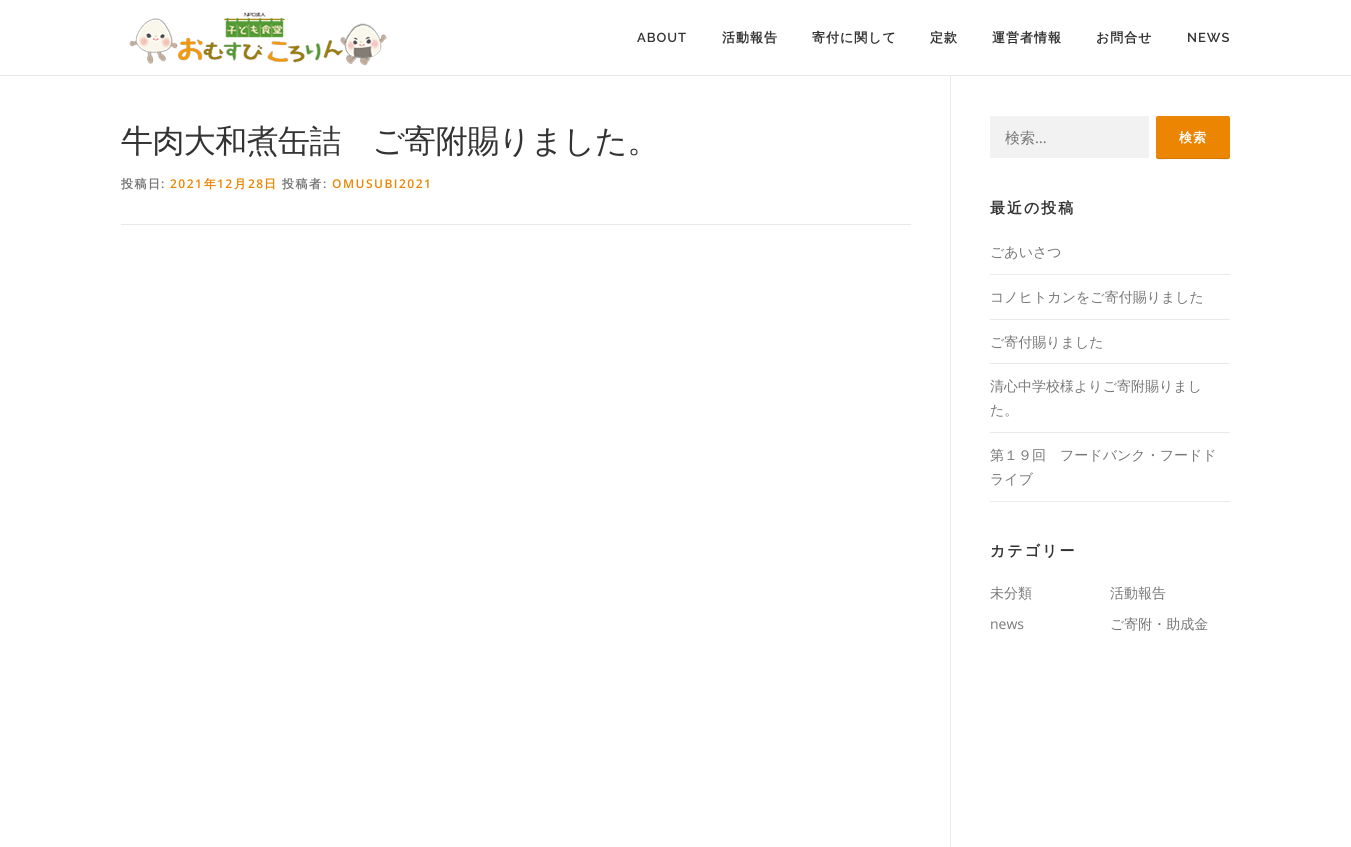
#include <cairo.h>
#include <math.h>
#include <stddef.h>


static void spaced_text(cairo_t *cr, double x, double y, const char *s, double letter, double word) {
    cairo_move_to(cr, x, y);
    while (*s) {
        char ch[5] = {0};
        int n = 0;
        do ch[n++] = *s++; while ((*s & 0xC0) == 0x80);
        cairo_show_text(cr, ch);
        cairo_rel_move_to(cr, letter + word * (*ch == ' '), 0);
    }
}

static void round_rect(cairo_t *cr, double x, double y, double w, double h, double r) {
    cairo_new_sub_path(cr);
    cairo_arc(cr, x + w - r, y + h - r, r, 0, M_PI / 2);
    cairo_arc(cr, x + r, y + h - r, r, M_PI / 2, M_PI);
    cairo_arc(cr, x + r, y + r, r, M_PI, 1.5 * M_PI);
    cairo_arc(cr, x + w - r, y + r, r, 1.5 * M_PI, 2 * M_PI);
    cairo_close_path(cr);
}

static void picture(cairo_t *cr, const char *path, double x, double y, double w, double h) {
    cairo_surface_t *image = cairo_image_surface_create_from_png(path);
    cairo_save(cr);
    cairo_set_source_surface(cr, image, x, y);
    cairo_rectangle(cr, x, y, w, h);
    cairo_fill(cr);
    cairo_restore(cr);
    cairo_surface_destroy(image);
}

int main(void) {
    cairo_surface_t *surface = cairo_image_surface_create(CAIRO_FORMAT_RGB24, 1351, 847);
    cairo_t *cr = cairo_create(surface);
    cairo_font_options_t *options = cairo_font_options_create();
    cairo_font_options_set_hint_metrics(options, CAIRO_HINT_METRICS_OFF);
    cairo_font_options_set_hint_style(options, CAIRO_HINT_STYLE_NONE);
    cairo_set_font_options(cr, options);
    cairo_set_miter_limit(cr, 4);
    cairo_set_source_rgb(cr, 1, 1, 1);
    cairo_paint(cr);
    picture(cr, "img1.png", 129, 12, 258, 54);
    cairo_select_font_face(cr, "Raleway SemiBold", CAIRO_FONT_SLANT_NORMAL, CAIRO_FONT_WEIGHT_NORMAL);
    cairo_set_font_size(cr, 13);
    cairo_set_source_rgb(cr, 0.2, 0.2, 0.2);
    spaced_text(cr, 637, 42, "ABOUT", 1, 0);
    cairo_select_font_face(cr, "WenQuanYi Zen Hei", CAIRO_FONT_SLANT_NORMAL, CAIRO_FONT_WEIGHT_BOLD);
    spaced_text(cr, 722, 42, "活動報告", 1, 0);
    spaced_text(cr, 812, 42, "寄付に関して", 1, 0);
    spaced_text(cr, 930, 42, "定款", 1, 0);
    spaced_text(cr, 992, 42, "運営者情報", 1, 0);
    spaced_text(cr, 1096, 42, "お問合せ", 1, 0);
    cairo_select_font_face(cr, "Raleway SemiBold", CAIRO_FONT_SLANT_NORMAL, CAIRO_FONT_WEIGHT_NORMAL);
    spaced_text(cr, 1187, 42, "NEWS", 1, 0);
    cairo_set_source_rgb(cr, 0.914, 0.914, 0.914);
    cairo_rectangle(cr, 0, 75, 1351, 1);
    cairo_fill(cr);
    cairo_rectangle(cr, 950, 76, 1, 771);
    cairo_fill(cr);
    cairo_select_font_face(cr, "WenQuanYi Zen Hei Medium", CAIRO_FONT_SLANT_NORMAL, CAIRO_FONT_WEIGHT_NORMAL);
    cairo_set_font_size(cr, 32);
    cairo_set_source_rgb(cr, 0.2, 0.2, 0.2);
    spaced_text(cr, 121, 152, "牛肉大和煮缶詰　ご寄附賜りました。", -0.6, 0);
    cairo_set_source_rgb(cr, 0.914, 0.914, 0.914);
    cairo_rectangle(cr, 121, 224, 790, 1);
    cairo_fill(cr);
    cairo_select_font_face(cr, "WenQuanYi Zen Hei", CAIRO_FONT_SLANT_NORMAL, CAIRO_FONT_WEIGHT_BOLD);
    cairo_set_font_size(cr, 12);
    cairo_set_source_rgb(cr, 0.467, 0.467, 0.467);
    spaced_text(cr, 121, 188, "投稿日", 1.5, 0);
    cairo_select_font_face(cr, "Open Sans SemiBold", CAIRO_FONT_SLANT_NORMAL, CAIRO_FONT_WEIGHT_NORMAL);
    spaced_text(cr, 161, 188, ":", 1.5, 0);
    cairo_set_source_rgb(cr, 0.918, 0.522, 0.008);
    spaced_text(cr, 170, 188, "2021", 1.5, 0);
    cairo_select_font_face(cr, "WenQuanYi Zen Hei", CAIRO_FONT_SLANT_NORMAL, CAIRO_FONT_WEIGHT_BOLD);
    spaced_text(cr, 204, 188, "年", 1.5, 0);
    cairo_select_font_face(cr, "Open Sans SemiBold", CAIRO_FONT_SLANT_NORMAL, CAIRO_FONT_WEIGHT_NORMAL);
    spaced_text(cr, 217, 188, "12", 1.5, 0);
    cairo_select_font_face(cr, "WenQuanYi Zen Hei", CAIRO_FONT_SLANT_NORMAL, CAIRO_FONT_WEIGHT_BOLD);
    spaced_text(cr, 234, 188, "月", 1.5, 0);
    cairo_select_font_face(cr, "Open Sans SemiBold", CAIRO_FONT_SLANT_NORMAL, CAIRO_FONT_WEIGHT_NORMAL);
    spaced_text(cr, 248, 188, "28", 1.5, 0);
    cairo_select_font_face(cr, "WenQuanYi Zen Hei", CAIRO_FONT_SLANT_NORMAL, CAIRO_FONT_WEIGHT_BOLD);
    spaced_text(cr, 264, 188, "日", 1.5, 0);
    cairo_set_source_rgb(cr, 0.467, 0.467, 0.467);
    spaced_text(cr, 282, 188, "投稿者", 1.5, 0);
    cairo_select_font_face(cr, "Open Sans SemiBold", CAIRO_FONT_SLANT_NORMAL, CAIRO_FONT_WEIGHT_NORMAL);
    spaced_text(cr, 323, 188, ":", 1.5, 0);
    cairo_set_source_rgb(cr, 0.918, 0.522, 0.008);
    spaced_text(cr, 332, 188, "OMUSUBI2021", 1.5, 0);
    cairo_set_source_rgb(cr, 0.949, 0.949, 0.949);
    cairo_rectangle(cr, 990, 116, 159, 42);
    cairo_fill(cr);
    cairo_select_font_face(cr, "WenQuanYi Zen Hei Medium", CAIRO_FONT_SLANT_NORMAL, CAIRO_FONT_WEIGHT_NORMAL);
    cairo_set_font_size(cr, 15);
    cairo_set_source_rgb(cr, 0.467, 0.467, 0.467);
    cairo_move_to(cr, 1005, 143);
    cairo_show_text(cr, "検索");
    cairo_select_font_face(cr, "Open Sans", CAIRO_FONT_SLANT_NORMAL, CAIRO_FONT_WEIGHT_NORMAL);
    cairo_move_to(cr, 1035, 143);
    cairo_show_text(cr, "…");
    cairo_set_source_rgb(cr, 0.918, 0.522, 0.008);
    round_rect(cr, 1156, 116, 74, 43, 2);
    cairo_fill(cr);
    cairo_set_source_rgba(cr, 0, 0, 0, 0.1);
    cairo_new_path(cr);
    cairo_move_to(cr, 1156, 156);
    cairo_curve_to(cr, 1156, 162, 1166, 159, 1170, 159);
    cairo_line_to(cr, 1216, 159);
    cairo_curve_to(cr, 1220, 159, 1230, 162, 1230, 156);
    cairo_line_to(cr, 1229, 157);
    cairo_line_to(cr, 1228, 158);
    cairo_line_to(cr, 1158, 158);
    cairo_curve_to(cr, 1157, 158, 1156, 157, 1156, 156);
    cairo_close_path(cr);
    cairo_fill(cr);
    cairo_select_font_face(cr, "WenQuanYi Zen Hei", CAIRO_FONT_SLANT_NORMAL, CAIRO_FONT_WEIGHT_BOLD);
    cairo_set_font_size(cr, 13);
    cairo_set_source_rgb(cr, 1, 1, 1);
    spaced_text(cr, 1179, 142, "検索", 1, 0);
    cairo_set_font_size(cr, 15);
    cairo_set_source_rgb(cr, 0.2, 0.2, 0.2);
    spaced_text(cr, 990, 213, "最近の投稿", 2, 0);
    cairo_set_source_rgb(cr, 0.914, 0.914, 0.914);
    cairo_rectangle(cr, 990, 274, 240, 1);
    cairo_fill(cr);
    cairo_select_font_face(cr, "WenQuanYi Zen Hei Medium", CAIRO_FONT_SLANT_NORMAL, CAIRO_FONT_WEIGHT_NORMAL);
    cairo_set_font_size(cr, 14);
    cairo_set_source_rgb(cr, 0.467, 0.467, 0.467);
    cairo_move_to(cr, 990, 257);
    cairo_show_text(cr, "ごあいさつ");
    cairo_set_source_rgb(cr, 0.914, 0.914, 0.914);
    cairo_rectangle(cr, 990, 319, 240, 1);
    cairo_fill(cr);
    cairo_set_source_rgb(cr, 0.467, 0.467, 0.467);
    cairo_move_to(cr, 990, 302);
    cairo_show_text(cr, "コノヒトカンをご寄付賜りました");
    cairo_set_source_rgb(cr, 0.914, 0.914, 0.914);
    cairo_rectangle(cr, 990, 363, 240, 1);
    cairo_fill(cr);
    cairo_set_source_rgb(cr, 0.467, 0.467, 0.467);
    cairo_move_to(cr, 990, 347);
    cairo_show_text(cr, "ご寄付賜りました");
    cairo_set_source_rgb(cr, 0.914, 0.914, 0.914);
    cairo_rectangle(cr, 990, 432, 240, 1);
    cairo_fill(cr);
    cairo_set_source_rgb(cr, 0.467, 0.467, 0.467);
    cairo_move_to(cr, 990, 391);
    cairo_show_text(cr, "清心中学校様よりご寄附賜りまし");
    cairo_move_to(cr, 990, 415);
    cairo_show_text(cr, "た。");
    cairo_set_source_rgb(cr, 0.914, 0.914, 0.914);
    cairo_rectangle(cr, 990, 501, 240, 1);
    cairo_fill(cr);
    cairo_set_source_rgb(cr, 0.467, 0.467, 0.467);
    cairo_move_to(cr, 990, 460);
    cairo_show_text(cr, "第１９回　フードバンク・フードド");
    cairo_move_to(cr, 990, 484);
    cairo_show_text(cr, "ライブ");
    cairo_select_font_face(cr, "WenQuanYi Zen Hei", CAIRO_FONT_SLANT_NORMAL, CAIRO_FONT_WEIGHT_BOLD);
    cairo_set_font_size(cr, 15);
    cairo_set_source_rgb(cr, 0.2, 0.2, 0.2);
    spaced_text(cr, 990, 556, "カテゴリー", 2, 0);
    cairo_select_font_face(cr, "WenQuanYi Zen Hei Medium", CAIRO_FONT_SLANT_NORMAL, CAIRO_FONT_WEIGHT_NORMAL);
    cairo_set_font_size(cr, 14);
    cairo_set_source_rgb(cr, 0.467, 0.467, 0.467);
    cairo_move_to(cr, 990, 598);
    cairo_show_text(cr, "未分類");
    cairo_move_to(cr, 1110, 598);
    cairo_show_text(cr, "活動報告");
    cairo_select_font_face(cr, "Open Sans", CAIRO_FONT_SLANT_NORMAL, CAIRO_FONT_WEIGHT_NORMAL);
    cairo_move_to(cr, 990, 629);
    cairo_show_text(cr, "news");
    cairo_select_font_face(cr, "WenQuanYi Zen Hei Medium", CAIRO_FONT_SLANT_NORMAL, CAIRO_FONT_WEIGHT_NORMAL);
    cairo_move_to(cr, 1110, 629);
    cairo_show_text(cr, "ご寄附・助成金");
    cairo_surface_write_to_png(surface, "page.png");
    cairo_font_options_destroy(options);
    cairo_destroy(cr);
    cairo_surface_destroy(surface);
    return 0;
}
